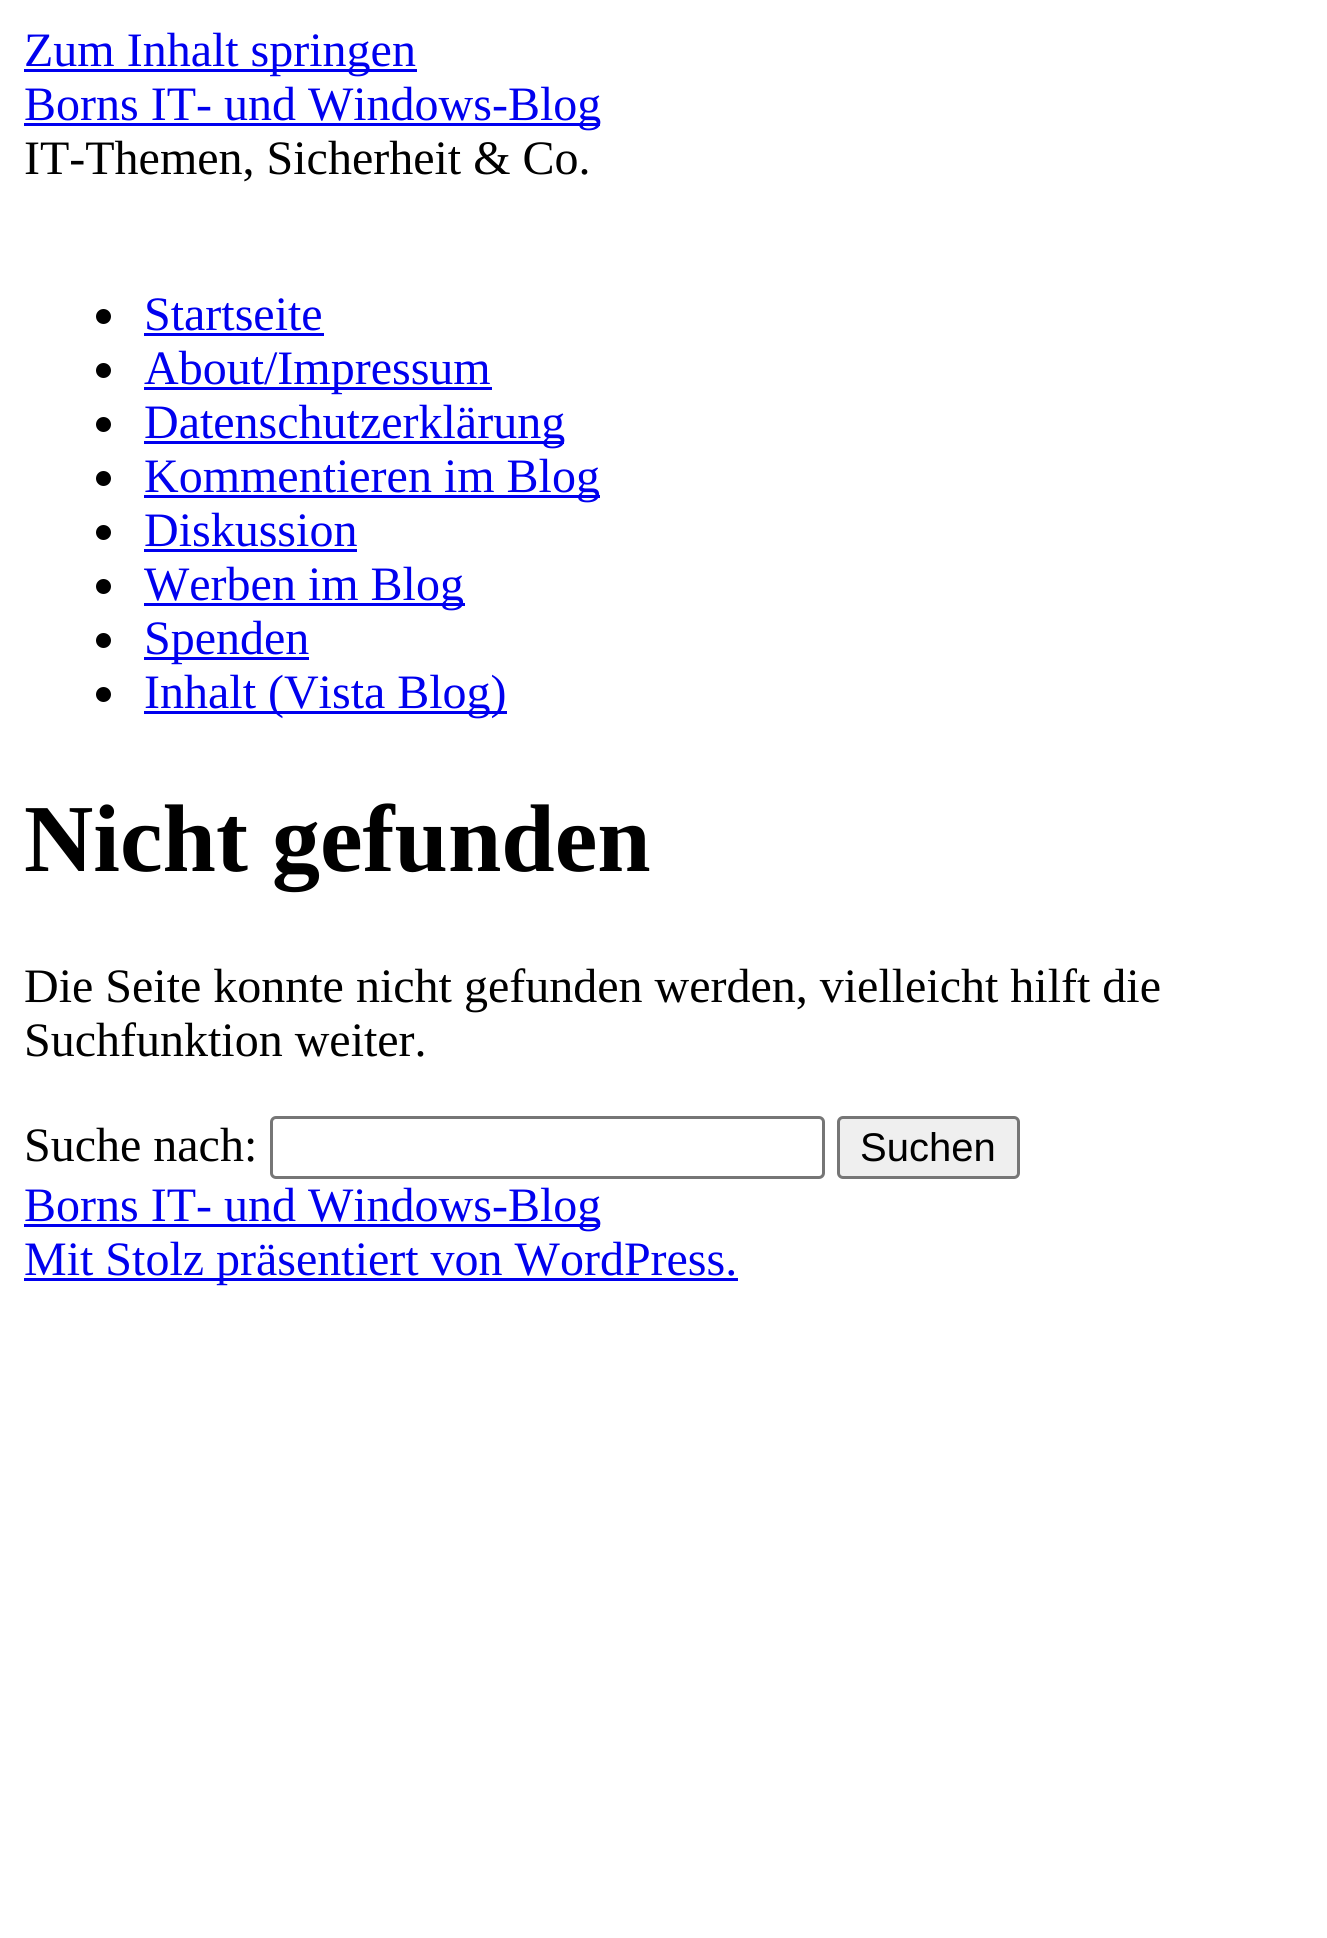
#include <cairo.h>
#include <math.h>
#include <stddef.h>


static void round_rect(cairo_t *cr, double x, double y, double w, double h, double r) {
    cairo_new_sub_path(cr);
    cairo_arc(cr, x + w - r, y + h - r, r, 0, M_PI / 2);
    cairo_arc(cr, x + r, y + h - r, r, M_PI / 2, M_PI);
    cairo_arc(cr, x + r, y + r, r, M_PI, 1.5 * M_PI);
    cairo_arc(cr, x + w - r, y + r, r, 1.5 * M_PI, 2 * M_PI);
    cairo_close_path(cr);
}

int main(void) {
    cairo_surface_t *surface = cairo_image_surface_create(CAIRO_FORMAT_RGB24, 1327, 1938);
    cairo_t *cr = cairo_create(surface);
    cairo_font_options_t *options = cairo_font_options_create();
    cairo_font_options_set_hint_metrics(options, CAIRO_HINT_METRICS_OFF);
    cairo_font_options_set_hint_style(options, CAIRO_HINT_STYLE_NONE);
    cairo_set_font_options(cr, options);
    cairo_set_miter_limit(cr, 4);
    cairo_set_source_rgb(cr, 1, 1, 1);
    cairo_paint(cr);
    cairo_set_source_rgb(cr, 0, 0, 0.933);
    cairo_rectangle(cr, 24, 69, 393, 3);
    cairo_fill(cr);
    cairo_select_font_face(cr, "Liberation Serif", CAIRO_FONT_SLANT_NORMAL, CAIRO_FONT_WEIGHT_NORMAL);
    cairo_set_font_size(cr, 48);
    cairo_move_to(cr, 24, 66);
    cairo_show_text(cr, "Zum Inhalt springen");
    cairo_rectangle(cr, 24, 123, 576, 3);
    cairo_fill(cr);
    cairo_move_to(cr, 24, 120);
    cairo_show_text(cr, "Borns IT- und Windows-Blog");
    cairo_set_source_rgb(cr, 0, 0, 0);
    cairo_move_to(cr, 24, 174);
    cairo_show_text(cr, "IT-Themen, Sicherheit & Co.");
    cairo_new_path(cr);
    cairo_arc(cr, 103.5, 316.5, 7.5, 0, 2 * M_PI);
    cairo_fill(cr);
    cairo_set_source_rgb(cr, 0, 0, 0.933);
    cairo_move_to(cr, 144, 330);
    cairo_show_text(cr, "Startseite");
    cairo_rectangle(cr, 144, 333, 180, 3);
    cairo_fill(cr);
    cairo_set_source_rgb(cr, 0, 0, 0);
    cairo_arc(cr, 103.5, 370.5, 7.5, 0, 2 * M_PI);
    cairo_fill(cr);
    cairo_set_source_rgb(cr, 0, 0, 0.933);
    cairo_rectangle(cr, 144, 387, 348, 3);
    cairo_fill(cr);
    cairo_move_to(cr, 144, 384);
    cairo_show_text(cr, "About/Impressum");
    cairo_set_source_rgb(cr, 0, 0, 0);
    cairo_new_path(cr);
    cairo_arc(cr, 103.5, 424.5, 7.5, 0, 2 * M_PI);
    cairo_fill(cr);
    cairo_set_source_rgb(cr, 0, 0, 0.933);
    cairo_rectangle(cr, 144, 441, 420, 3);
    cairo_fill(cr);
    cairo_move_to(cr, 144, 438);
    cairo_show_text(cr, "Datenschutzerklärung");
    cairo_set_source_rgb(cr, 0, 0, 0);
    cairo_new_path(cr);
    cairo_arc(cr, 103.5, 478.5, 7.5, 0, 2 * M_PI);
    cairo_fill(cr);
    cairo_set_source_rgb(cr, 0, 0, 0.933);
    cairo_rectangle(cr, 144, 495, 456, 3);
    cairo_fill(cr);
    cairo_move_to(cr, 144, 492);
    cairo_show_text(cr, "Kommentieren im Blog");
    cairo_set_source_rgb(cr, 0, 0, 0);
    cairo_new_path(cr);
    cairo_arc(cr, 103.5, 532.5, 7.5, 0, 2 * M_PI);
    cairo_fill(cr);
    cairo_set_source_rgb(cr, 0, 0, 0.933);
    cairo_move_to(cr, 144, 546);
    cairo_show_text(cr, "Diskussion");
    cairo_rectangle(cr, 144, 549, 213, 3);
    cairo_fill(cr);
    cairo_set_source_rgb(cr, 0, 0, 0);
    cairo_arc(cr, 103.5, 586.5, 7.5, 0, 2 * M_PI);
    cairo_fill(cr);
    cairo_set_source_rgb(cr, 0, 0, 0.933);
    cairo_rectangle(cr, 144, 603, 321, 3);
    cairo_fill(cr);
    cairo_move_to(cr, 144, 600);
    cairo_show_text(cr, "Werben im Blog");
    cairo_set_source_rgb(cr, 0, 0, 0);
    cairo_new_path(cr);
    cairo_arc(cr, 103.5, 640.5, 7.5, 0, 2 * M_PI);
    cairo_fill(cr);
    cairo_set_source_rgb(cr, 0, 0, 0.933);
    cairo_rectangle(cr, 144, 657, 165, 3);
    cairo_fill(cr);
    cairo_move_to(cr, 144, 654);
    cairo_show_text(cr, "Spenden");
    cairo_set_source_rgb(cr, 0, 0, 0);
    cairo_new_path(cr);
    cairo_arc(cr, 103.5, 694.5, 7.5, 0, 2 * M_PI);
    cairo_fill(cr);
    cairo_set_source_rgb(cr, 0, 0, 0.933);
    cairo_rectangle(cr, 144, 711, 363, 3);
    cairo_fill(cr);
    cairo_move_to(cr, 144, 708);
    cairo_show_text(cr, "Inhalt (Vista Blog)");
    cairo_select_font_face(cr, "Liberation Serif", CAIRO_FONT_SLANT_NORMAL, CAIRO_FONT_WEIGHT_BOLD);
    cairo_set_font_size(cr, 96);
    cairo_set_source_rgb(cr, 0, 0, 0);
    cairo_move_to(cr, 24, 871);
    cairo_show_text(cr, "Nicht gefunden");
    cairo_select_font_face(cr, "Liberation Serif", CAIRO_FONT_SLANT_NORMAL, CAIRO_FONT_WEIGHT_NORMAL);
    cairo_set_font_size(cr, 48);
    cairo_move_to(cr, 24, 1002);
    cairo_show_text(cr, "Die Seite konnte nicht gefunden werden, vielleicht hilft die");
    cairo_move_to(cr, 24, 1056);
    cairo_show_text(cr, "Suchfunktion weiter.");
    cairo_move_to(cr, 24, 1161);
    cairo_show_text(cr, "Suche nach:");
    round_rect(cr, 271.5, 1117.5, 552, 60, 4.5);
    cairo_set_source_rgb(cr, 0.463, 0.463, 0.463);
    cairo_set_line_width(cr, 3);
    cairo_stroke(cr);
    cairo_set_source_rgb(cr, 0.937, 0.937, 0.937);
    round_rect(cr, 838.5, 1117.5, 180, 60, 4.5);
    cairo_fill_preserve(cr);
    cairo_set_source_rgb(cr, 0.463, 0.463, 0.463);
    cairo_stroke(cr);
    cairo_select_font_face(cr, "Liberation Sans", CAIRO_FONT_SLANT_NORMAL, CAIRO_FONT_WEIGHT_NORMAL);
    cairo_set_font_size(cr, 40);
    cairo_set_source_rgb(cr, 0, 0, 0);
    cairo_move_to(cr, 860, 1161);
    cairo_show_text(cr, "Suchen");
    cairo_set_source_rgb(cr, 0, 0, 0.933);
    cairo_rectangle(cr, 24, 1224, 576, 3);
    cairo_fill(cr);
    cairo_select_font_face(cr, "Liberation Serif", CAIRO_FONT_SLANT_NORMAL, CAIRO_FONT_WEIGHT_NORMAL);
    cairo_set_font_size(cr, 48);
    cairo_move_to(cr, 24, 1221);
    cairo_show_text(cr, "Borns IT- und Windows-Blog");
    cairo_rectangle(cr, 24, 1278, 714, 3);
    cairo_fill(cr);
    cairo_move_to(cr, 24, 1275);
    cairo_show_text(cr, "Mit Stolz präsentiert von WordPress.");
    cairo_surface_write_to_png(surface, "page.png");
    cairo_font_options_destroy(options);
    cairo_destroy(cr);
    cairo_surface_destroy(surface);
    return 0;
}
